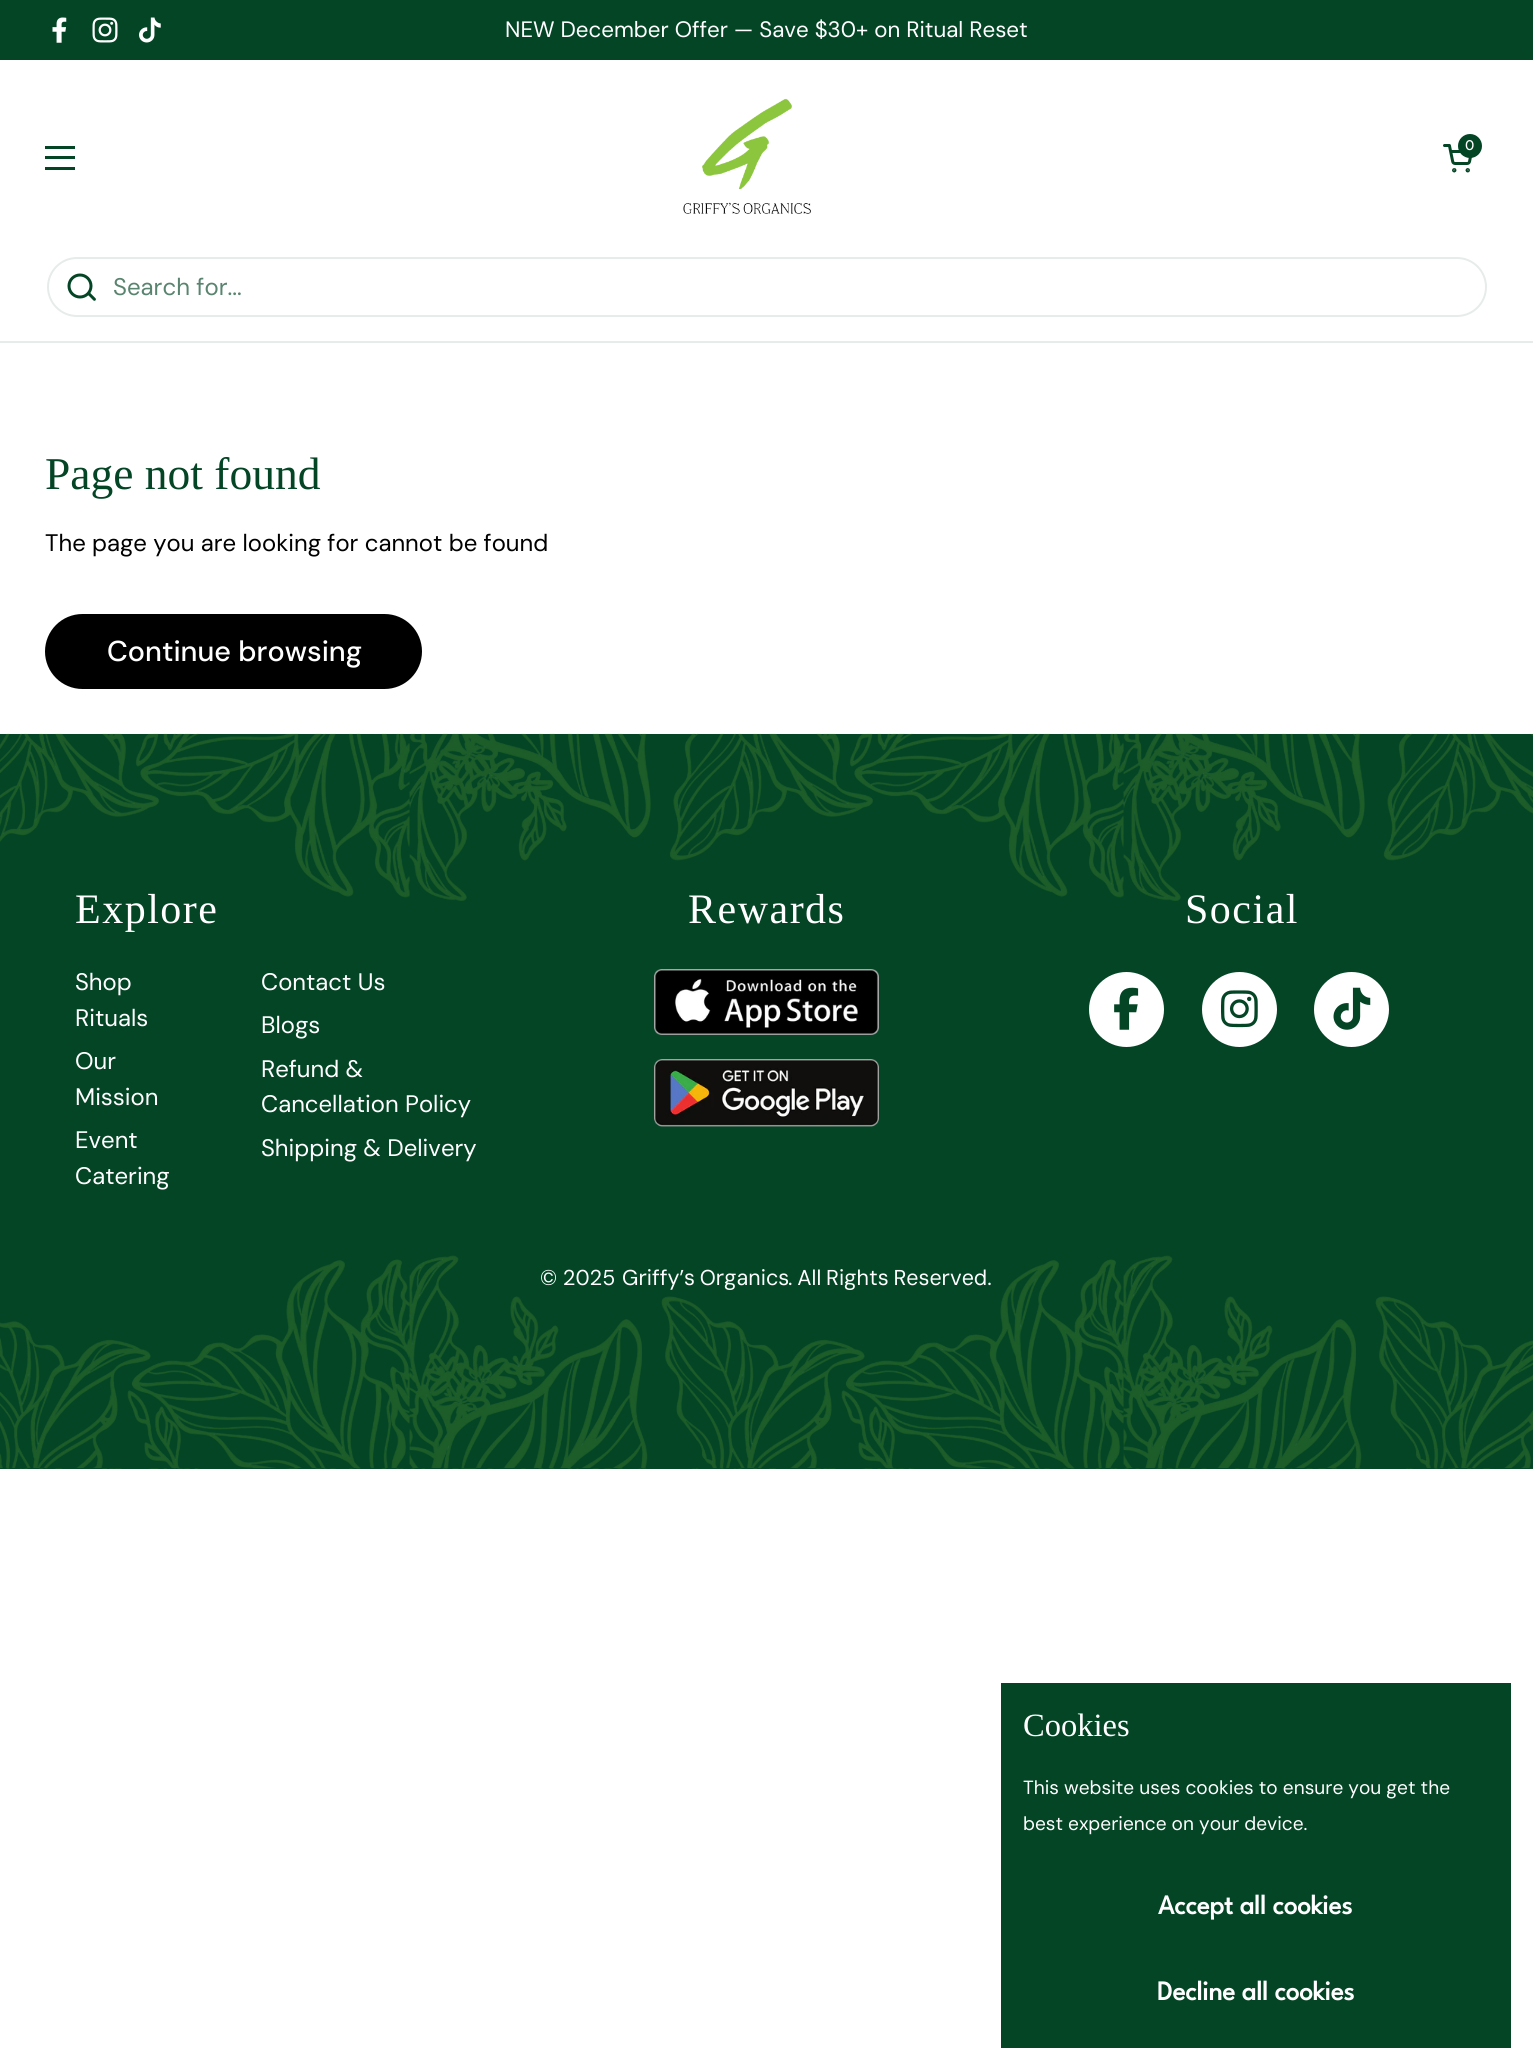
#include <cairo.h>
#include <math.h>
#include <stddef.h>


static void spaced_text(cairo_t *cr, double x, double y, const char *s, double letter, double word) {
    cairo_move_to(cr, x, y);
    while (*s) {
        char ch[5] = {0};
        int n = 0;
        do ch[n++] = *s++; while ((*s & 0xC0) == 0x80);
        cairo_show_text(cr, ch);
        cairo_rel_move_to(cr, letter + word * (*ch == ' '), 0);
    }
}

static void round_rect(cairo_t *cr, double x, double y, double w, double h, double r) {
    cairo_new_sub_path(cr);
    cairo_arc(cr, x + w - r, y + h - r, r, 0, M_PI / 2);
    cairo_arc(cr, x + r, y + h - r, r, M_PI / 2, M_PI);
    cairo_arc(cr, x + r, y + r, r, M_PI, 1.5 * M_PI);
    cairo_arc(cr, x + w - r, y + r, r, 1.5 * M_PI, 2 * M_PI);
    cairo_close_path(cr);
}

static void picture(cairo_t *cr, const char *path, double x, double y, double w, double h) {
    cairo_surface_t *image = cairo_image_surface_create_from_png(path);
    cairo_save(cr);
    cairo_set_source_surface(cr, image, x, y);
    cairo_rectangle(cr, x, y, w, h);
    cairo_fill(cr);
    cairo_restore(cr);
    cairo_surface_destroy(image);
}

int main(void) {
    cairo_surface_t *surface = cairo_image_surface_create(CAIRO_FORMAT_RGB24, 1533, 2069);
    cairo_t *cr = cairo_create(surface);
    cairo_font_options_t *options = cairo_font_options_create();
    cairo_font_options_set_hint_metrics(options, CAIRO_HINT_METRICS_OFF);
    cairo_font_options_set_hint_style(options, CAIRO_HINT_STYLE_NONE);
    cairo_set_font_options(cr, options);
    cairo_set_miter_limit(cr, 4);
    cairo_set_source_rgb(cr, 1, 1, 1);
    cairo_paint(cr);
    cairo_set_source_rgb(cr, 0.012, 0.271, 0.145);
    cairo_rectangle(cr, 0, 0, 1533, 60);
    cairo_fill(cr);
    picture(cr, "img1.png", 52, 17, 15, 26);
    picture(cr, "img2.png", 92, 17, 26, 26);
    picture(cr, "img3.png", 139, 17, 22, 26);
    cairo_select_font_face(cr, "DM Sans", CAIRO_FONT_SLANT_NORMAL, CAIRO_FONT_WEIGHT_NORMAL);
    cairo_set_font_size(cr, 22.3);
    cairo_set_source_rgb(cr, 1, 1, 1);
    cairo_move_to(cr, 505, 37);
    cairo_show_text(cr, "NEW December Offer — Save $30+ on Ritual Reset");
    cairo_set_source_rgb(cr, 0.012, 0.271, 0.145);
    cairo_rectangle(cr, 45, 146, 30, 3);
    cairo_fill(cr);
    cairo_rectangle(cr, 45, 156, 30, 3);
    cairo_fill(cr);
    cairo_rectangle(cr, 45, 167, 30, 3);
    cairo_fill(cr);
    picture(cr, "img4.png", 683, 98, 128, 116);
    picture(cr, "img5.png", 1443, 144, 29, 29);
    cairo_arc(cr, 1470, 146, 12, 0, 2 * M_PI);
    cairo_fill(cr);
    cairo_select_font_face(cr, "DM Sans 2 Medium", CAIRO_FONT_SLANT_NORMAL, CAIRO_FONT_WEIGHT_NORMAL);
    cairo_set_font_size(cr, 14);
    cairo_set_source_rgb(cr, 1, 1, 1);
    cairo_move_to(cr, 1465, 150);
    cairo_show_text(cr, "0");
    cairo_set_source_rgb(cr, 0.902, 0.925, 0.914);
    cairo_rectangle(cr, 0, 341, 1533, 2);
    cairo_fill(cr);
    round_rect(cr, 48, 258, 1438, 58, 29);
    cairo_stroke(cr);
    picture(cr, "img6.png", 67, 273, 29, 28);
    cairo_select_font_face(cr, "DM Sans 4", CAIRO_FONT_SLANT_NORMAL, CAIRO_FONT_WEIGHT_NORMAL);
    cairo_set_font_size(cr, 24);
    cairo_set_source_rgb(cr, 0.349, 0.518, 0.435);
    cairo_move_to(cr, 113, 295);
    cairo_show_text(cr, "Search for...");
    cairo_select_font_face(cr, "Liberation Serif", CAIRO_FONT_SLANT_NORMAL, CAIRO_FONT_WEIGHT_NORMAL);
    cairo_set_font_size(cr, 45.5);
    cairo_set_source_rgb(cr, 0.012, 0.271, 0.145);
    cairo_move_to(cr, 45, 489);
    cairo_show_text(cr, "Page not found");
    cairo_select_font_face(cr, "DM Sans 2", CAIRO_FONT_SLANT_NORMAL, CAIRO_FONT_WEIGHT_NORMAL);
    cairo_set_font_size(cr, 23.9);
    cairo_set_source_rgb(cr, 0, 0, 0);
    cairo_move_to(cr, 45, 551);
    cairo_show_text(cr, "The page you are looking for cannot be found");
    round_rect(cr, 46, 615, 375, 73, 36.5);
    cairo_fill_preserve(cr);
    cairo_stroke(cr);
    cairo_select_font_face(cr, "DM Sans Medium", CAIRO_FONT_SLANT_NORMAL, CAIRO_FONT_WEIGHT_NORMAL);
    cairo_set_font_size(cr, 28.75);
    cairo_set_source_rgb(cr, 1, 1, 1);
    cairo_move_to(cr, 107, 661);
    cairo_show_text(cr, "Continue browsing");
    cairo_set_source_rgb(cr, 0.012, 0.271, 0.145);
    cairo_rectangle(cr, 0, 734, 1533, 735);
    cairo_fill(cr);
    picture(cr, "img7.png", 0, 733, 1533, 736);
    cairo_select_font_face(cr, "Liberation Serif", CAIRO_FONT_SLANT_NORMAL, CAIRO_FONT_WEIGHT_NORMAL);
    cairo_set_font_size(cr, 42);
    cairo_set_source_rgb(cr, 1, 1, 1);
    spaced_text(cr, 75, 923, "Explore", 1.5, 0);
    cairo_select_font_face(cr, "DM Sans 2", CAIRO_FONT_SLANT_NORMAL, CAIRO_FONT_WEIGHT_NORMAL);
    cairo_set_font_size(cr, 23.9);
    cairo_move_to(cr, 75, 990);
    cairo_show_text(cr, "Shop");
    cairo_move_to(cr, 75, 1026);
    cairo_show_text(cr, "Rituals");
    cairo_move_to(cr, 75, 1069);
    cairo_show_text(cr, "Our");
    cairo_move_to(cr, 75, 1105);
    cairo_show_text(cr, "Mission");
    cairo_move_to(cr, 75, 1148);
    cairo_show_text(cr, "Event");
    cairo_move_to(cr, 75, 1184);
    cairo_show_text(cr, "Catering");
    cairo_move_to(cr, 261, 990);
    cairo_show_text(cr, "Contact Us");
    cairo_move_to(cr, 261, 1033);
    cairo_show_text(cr, "Blogs");
    cairo_move_to(cr, 261, 1077);
    cairo_show_text(cr, "Refund &");
    cairo_move_to(cr, 261, 1112);
    cairo_show_text(cr, "Cancellation Policy");
    cairo_move_to(cr, 261, 1156);
    cairo_show_text(cr, "Shipping & Delivery");
    cairo_select_font_face(cr, "Liberation Serif", CAIRO_FONT_SLANT_NORMAL, CAIRO_FONT_WEIGHT_NORMAL);
    cairo_set_font_size(cr, 42);
    spaced_text(cr, 688, 923, "Rewards", 1.5, 0);
    picture(cr, "img8.png", 654, 969, 225, 66);
    picture(cr, "img9.png", 654, 1059, 225, 68);
    spaced_text(cr, 1185, 923, "Social", 1.5, 0);
    cairo_new_path(cr);
    cairo_arc(cr, 1126.5, 1009.5, 37.5, 0, 2 * M_PI);
    cairo_fill(cr);
    picture(cr, "img10.png", 1114, 987, 25, 43);
    cairo_arc(cr, 1239.5, 1009.5, 37.5, 0, 2 * M_PI);
    cairo_fill(cr);
    picture(cr, "img11.png", 1221, 990, 37, 38);
    cairo_arc(cr, 1351.5, 1009.5, 37.5, 0, 2 * M_PI);
    cairo_fill(cr);
    picture(cr, "img12.png", 1333, 987, 38, 43);
    cairo_select_font_face(cr, "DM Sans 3", CAIRO_FONT_SLANT_NORMAL, CAIRO_FONT_WEIGHT_NORMAL);
    cairo_set_font_size(cr, 21.5);
    cairo_move_to(cr, 540, 1285);
    cairo_show_text(cr, "© 2025");
    spaced_text(cr, 622, 1285, "Griffy’s Organics", 0, -1);
    spaced_text(cr, 788, 1285, ". All Rights Reserved.", 0, -1);
    cairo_set_source_rgb(cr, 0.012, 0.271, 0.145);
    cairo_rectangle(cr, 1001, 1683, 510, 365);
    cairo_fill(cr);
    cairo_select_font_face(cr, "Liberation Serif", CAIRO_FONT_SLANT_NORMAL, CAIRO_FONT_WEIGHT_NORMAL);
    cairo_set_font_size(cr, 32.5);
    cairo_set_source_rgb(cr, 1, 1, 1);
    cairo_move_to(cr, 1023, 1736);
    cairo_show_text(cr, "Cookies");
    cairo_select_font_face(cr, "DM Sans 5", CAIRO_FONT_SLANT_NORMAL, CAIRO_FONT_WEIGHT_NORMAL);
    cairo_set_font_size(cr, 19.1);
    cairo_move_to(cr, 1023, 1794);
    cairo_show_text(cr, "This website uses cookies to ensure you get the");
    cairo_move_to(cr, 1023, 1830);
    cairo_show_text(cr, "best experience on your device.");
    cairo_select_font_face(cr, "League Spartan", CAIRO_FONT_SLANT_NORMAL, CAIRO_FONT_WEIGHT_BOLD);
    cairo_set_font_size(cr, 27);
    cairo_move_to(cr, 1158, 1914);
    cairo_show_text(cr, "Accept all cookies");
    cairo_move_to(cr, 1157, 2000);
    cairo_show_text(cr, "Decline all cookies");
    cairo_surface_write_to_png(surface, "page.png");
    cairo_font_options_destroy(options);
    cairo_destroy(cr);
    cairo_surface_destroy(surface);
    return 0;
}
